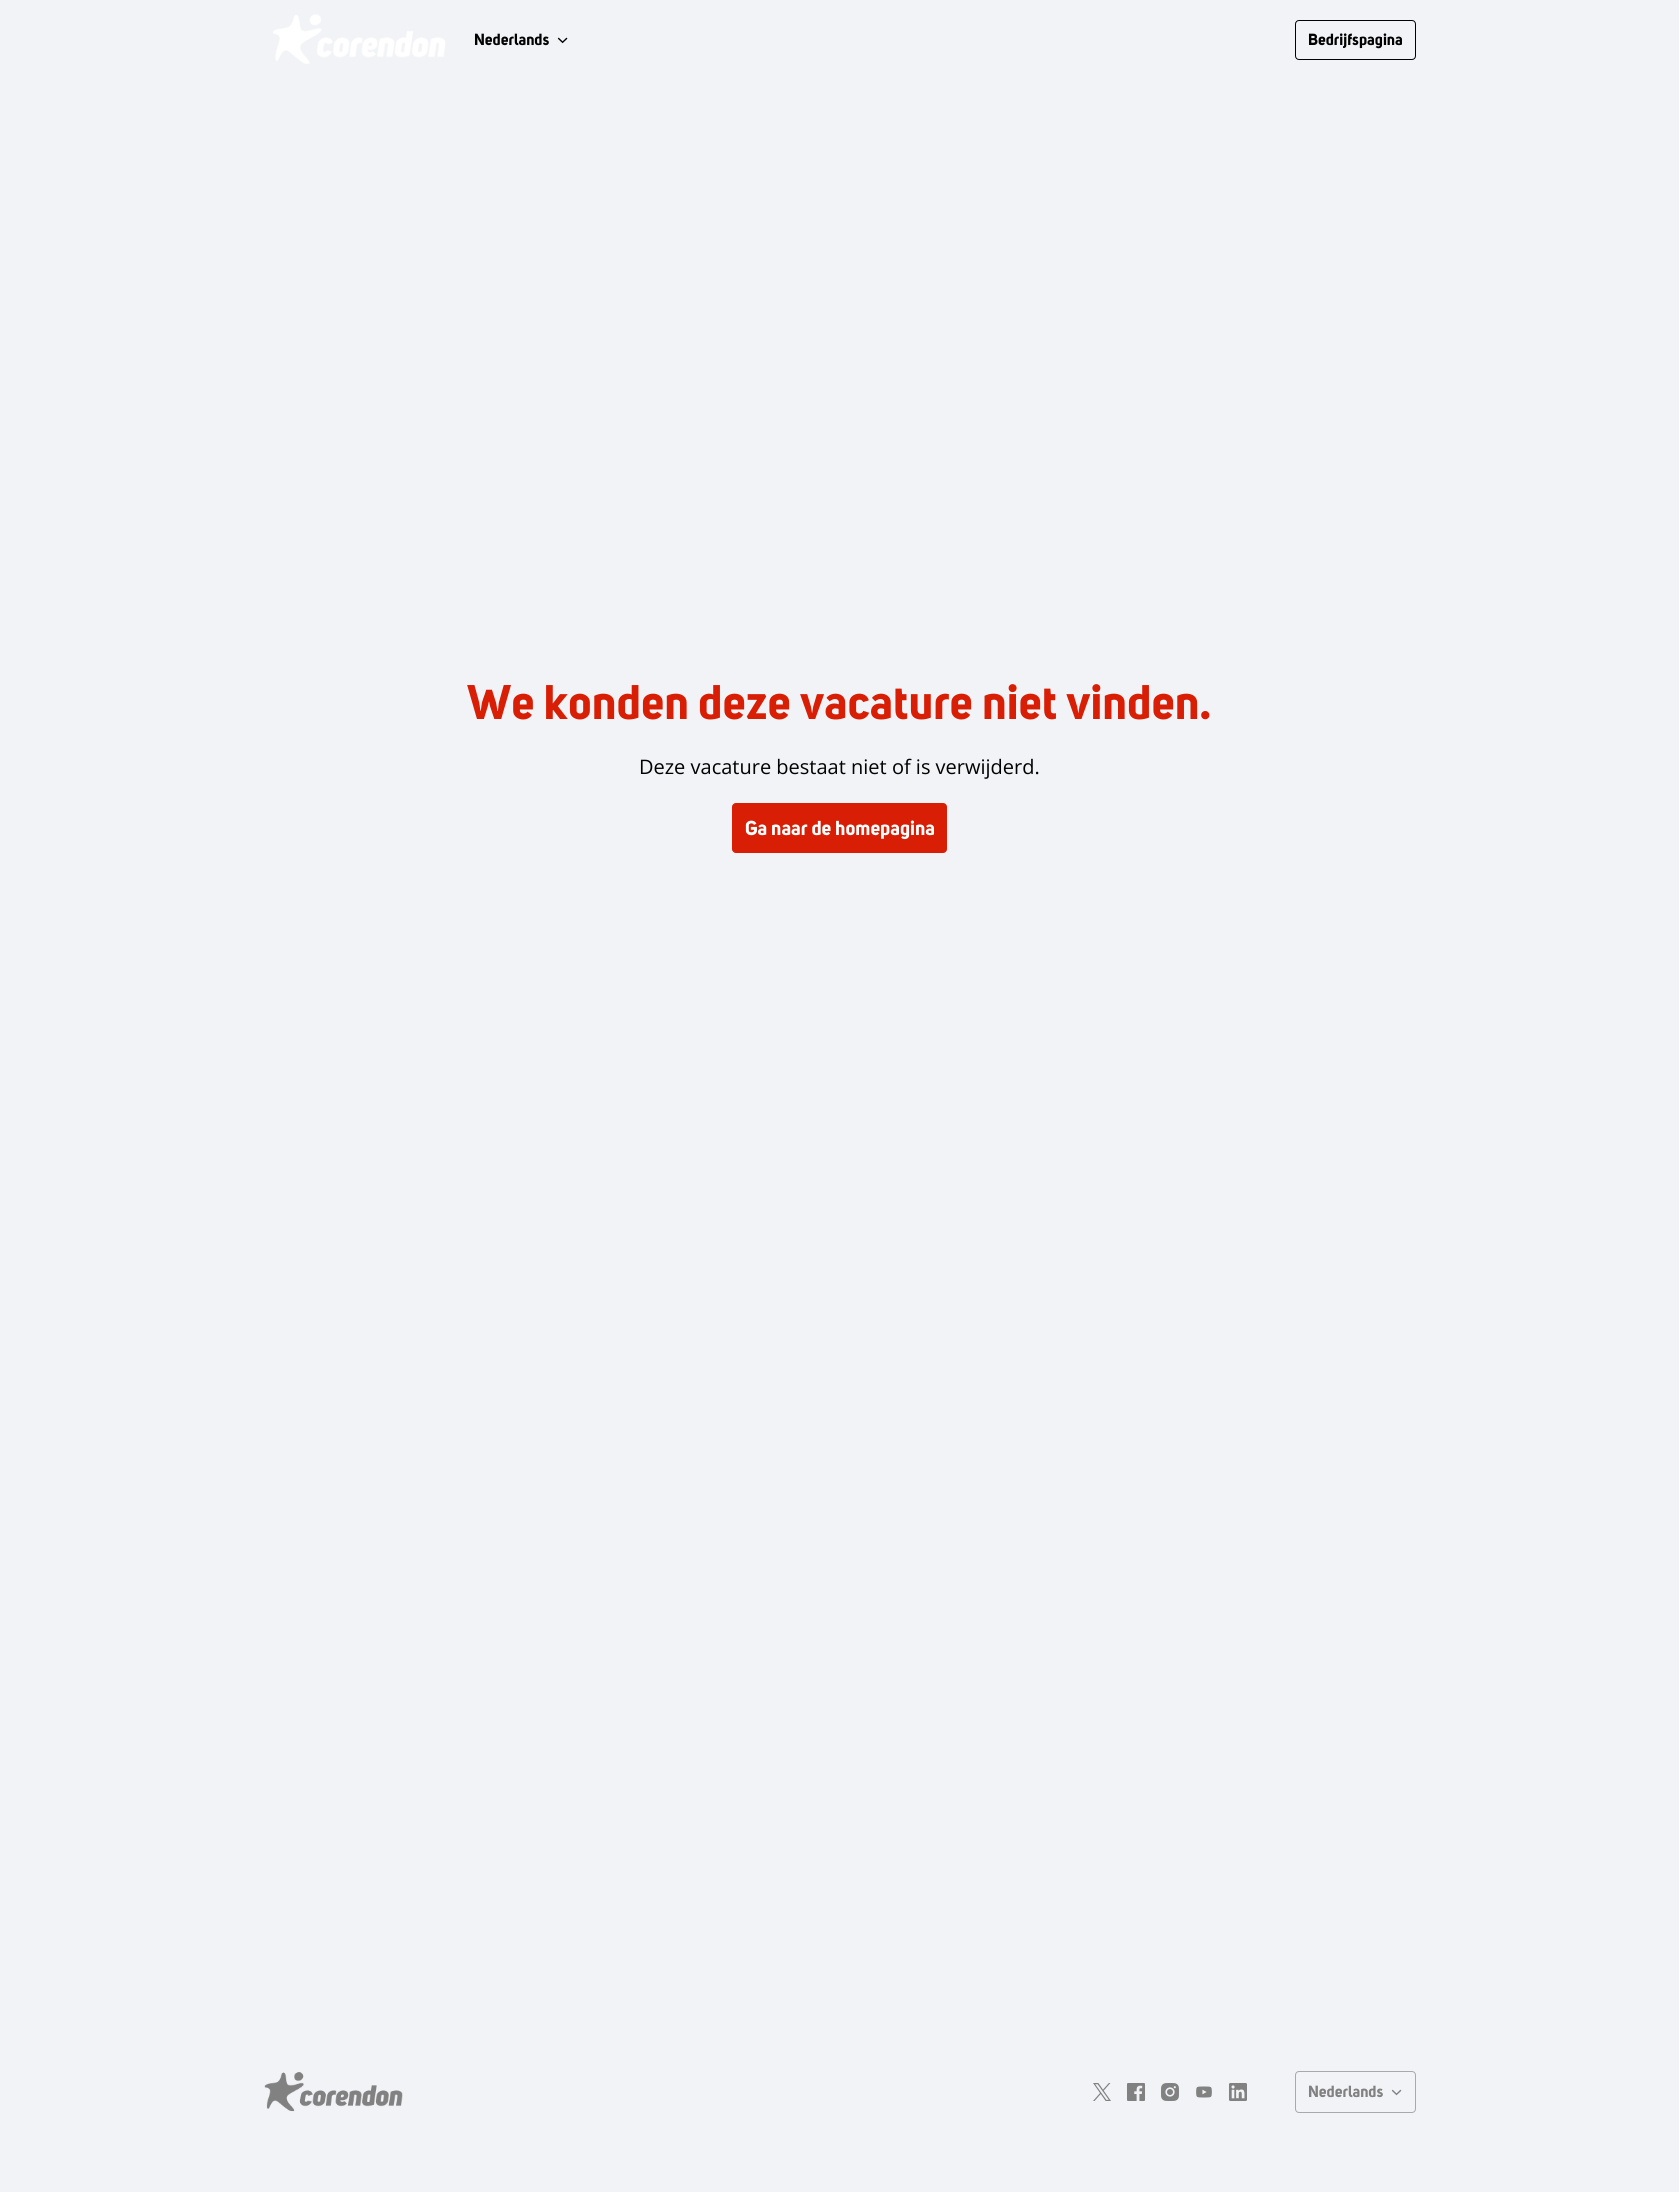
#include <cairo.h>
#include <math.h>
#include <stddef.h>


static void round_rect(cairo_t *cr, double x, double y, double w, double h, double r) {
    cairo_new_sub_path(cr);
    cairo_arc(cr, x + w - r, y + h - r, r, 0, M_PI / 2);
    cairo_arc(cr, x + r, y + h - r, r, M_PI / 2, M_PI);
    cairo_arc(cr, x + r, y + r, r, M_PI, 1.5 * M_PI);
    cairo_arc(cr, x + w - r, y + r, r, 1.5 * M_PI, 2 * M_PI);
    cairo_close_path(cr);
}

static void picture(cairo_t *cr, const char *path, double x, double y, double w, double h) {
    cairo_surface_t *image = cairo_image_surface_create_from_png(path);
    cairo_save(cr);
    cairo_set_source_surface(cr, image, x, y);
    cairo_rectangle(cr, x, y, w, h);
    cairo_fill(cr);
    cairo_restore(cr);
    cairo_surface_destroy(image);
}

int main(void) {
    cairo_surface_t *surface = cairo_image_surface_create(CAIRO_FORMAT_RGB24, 1679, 2192);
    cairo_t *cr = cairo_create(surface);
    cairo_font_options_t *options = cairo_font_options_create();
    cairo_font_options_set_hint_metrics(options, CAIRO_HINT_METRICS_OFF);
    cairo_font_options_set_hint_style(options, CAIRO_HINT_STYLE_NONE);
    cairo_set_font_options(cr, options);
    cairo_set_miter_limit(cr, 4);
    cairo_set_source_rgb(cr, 0.945, 0.953, 0.961);
    cairo_paint(cr);
    picture(cr, "img1.png", 273, 14, 173, 50);
    cairo_select_font_face(cr, "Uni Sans", CAIRO_FONT_SLANT_NORMAL, CAIRO_FONT_WEIGHT_BOLD);
    cairo_set_font_size(cr, 16);
    cairo_set_source_rgb(cr, 0.008, 0.008, 0.008);
    cairo_move_to(cr, 474, 45);
    cairo_show_text(cr, "Nederlands");
    picture(cr, "img2.png", 557, 37, 11, 7);
    round_rect(cr, 1295.5, 20.5, 120, 39, 3.5);
    cairo_set_line_width(cr, 1);
    cairo_stroke(cr);
    cairo_move_to(cr, 1308, 45);
    cairo_show_text(cr, "Bedrijfspagina");
    cairo_set_font_size(cr, 48);
    cairo_set_source_rgb(cr, 0.847, 0.118, 0.02);
    cairo_move_to(cr, 467, 719);
    cairo_show_text(cr, "We konden deze vacature niet vinden.");
    cairo_select_font_face(cr, "Open Sans", CAIRO_FONT_SLANT_NORMAL, CAIRO_FONT_WEIGHT_NORMAL);
    cairo_set_font_size(cr, 20);
    cairo_set_source_rgb(cr, 0.008, 0.008, 0.008);
    cairo_move_to(cr, 639, 774);
    cairo_show_text(cr, "Deze vacature bestaat niet of is verwijderd.");
    cairo_set_source_rgb(cr, 0.847, 0.118, 0.02);
    round_rect(cr, 732.5, 803.5, 214, 49, 3.5);
    cairo_fill_preserve(cr);
    cairo_stroke(cr);
    cairo_select_font_face(cr, "Uni Sans", CAIRO_FONT_SLANT_NORMAL, CAIRO_FONT_WEIGHT_BOLD);
    cairo_set_source_rgb(cr, 1, 1, 1);
    cairo_move_to(cr, 745, 835);
    cairo_show_text(cr, "Ga naar de homepagina");
    picture(cr, "img3.png", 264, 2072, 139, 40);
    picture(cr, "img4.png", 1093, 2083, 18, 18);
    picture(cr, "img5.png", 1127, 2083, 18, 18);
    picture(cr, "img6.png", 1161, 2083, 18, 18);
    picture(cr, "img7.png", 1196, 2086, 16, 12);
    picture(cr, "img8.png", 1229, 2083, 18, 18);
    round_rect(cr, 1295.5, 2071.5, 120, 41, 3.5);
    cairo_set_source_rgb(cr, 0.659, 0.663, 0.667);
    cairo_stroke(cr);
    cairo_set_font_size(cr, 16);
    cairo_set_source_rgb(cr, 0.506, 0.506, 0.506);
    cairo_move_to(cr, 1308, 2097);
    cairo_show_text(cr, "Nederlands");
    picture(cr, "img9.png", 1391, 2089, 11, 7);
    cairo_surface_write_to_png(surface, "page.png");
    cairo_font_options_destroy(options);
    cairo_destroy(cr);
    cairo_surface_destroy(surface);
    return 0;
}
